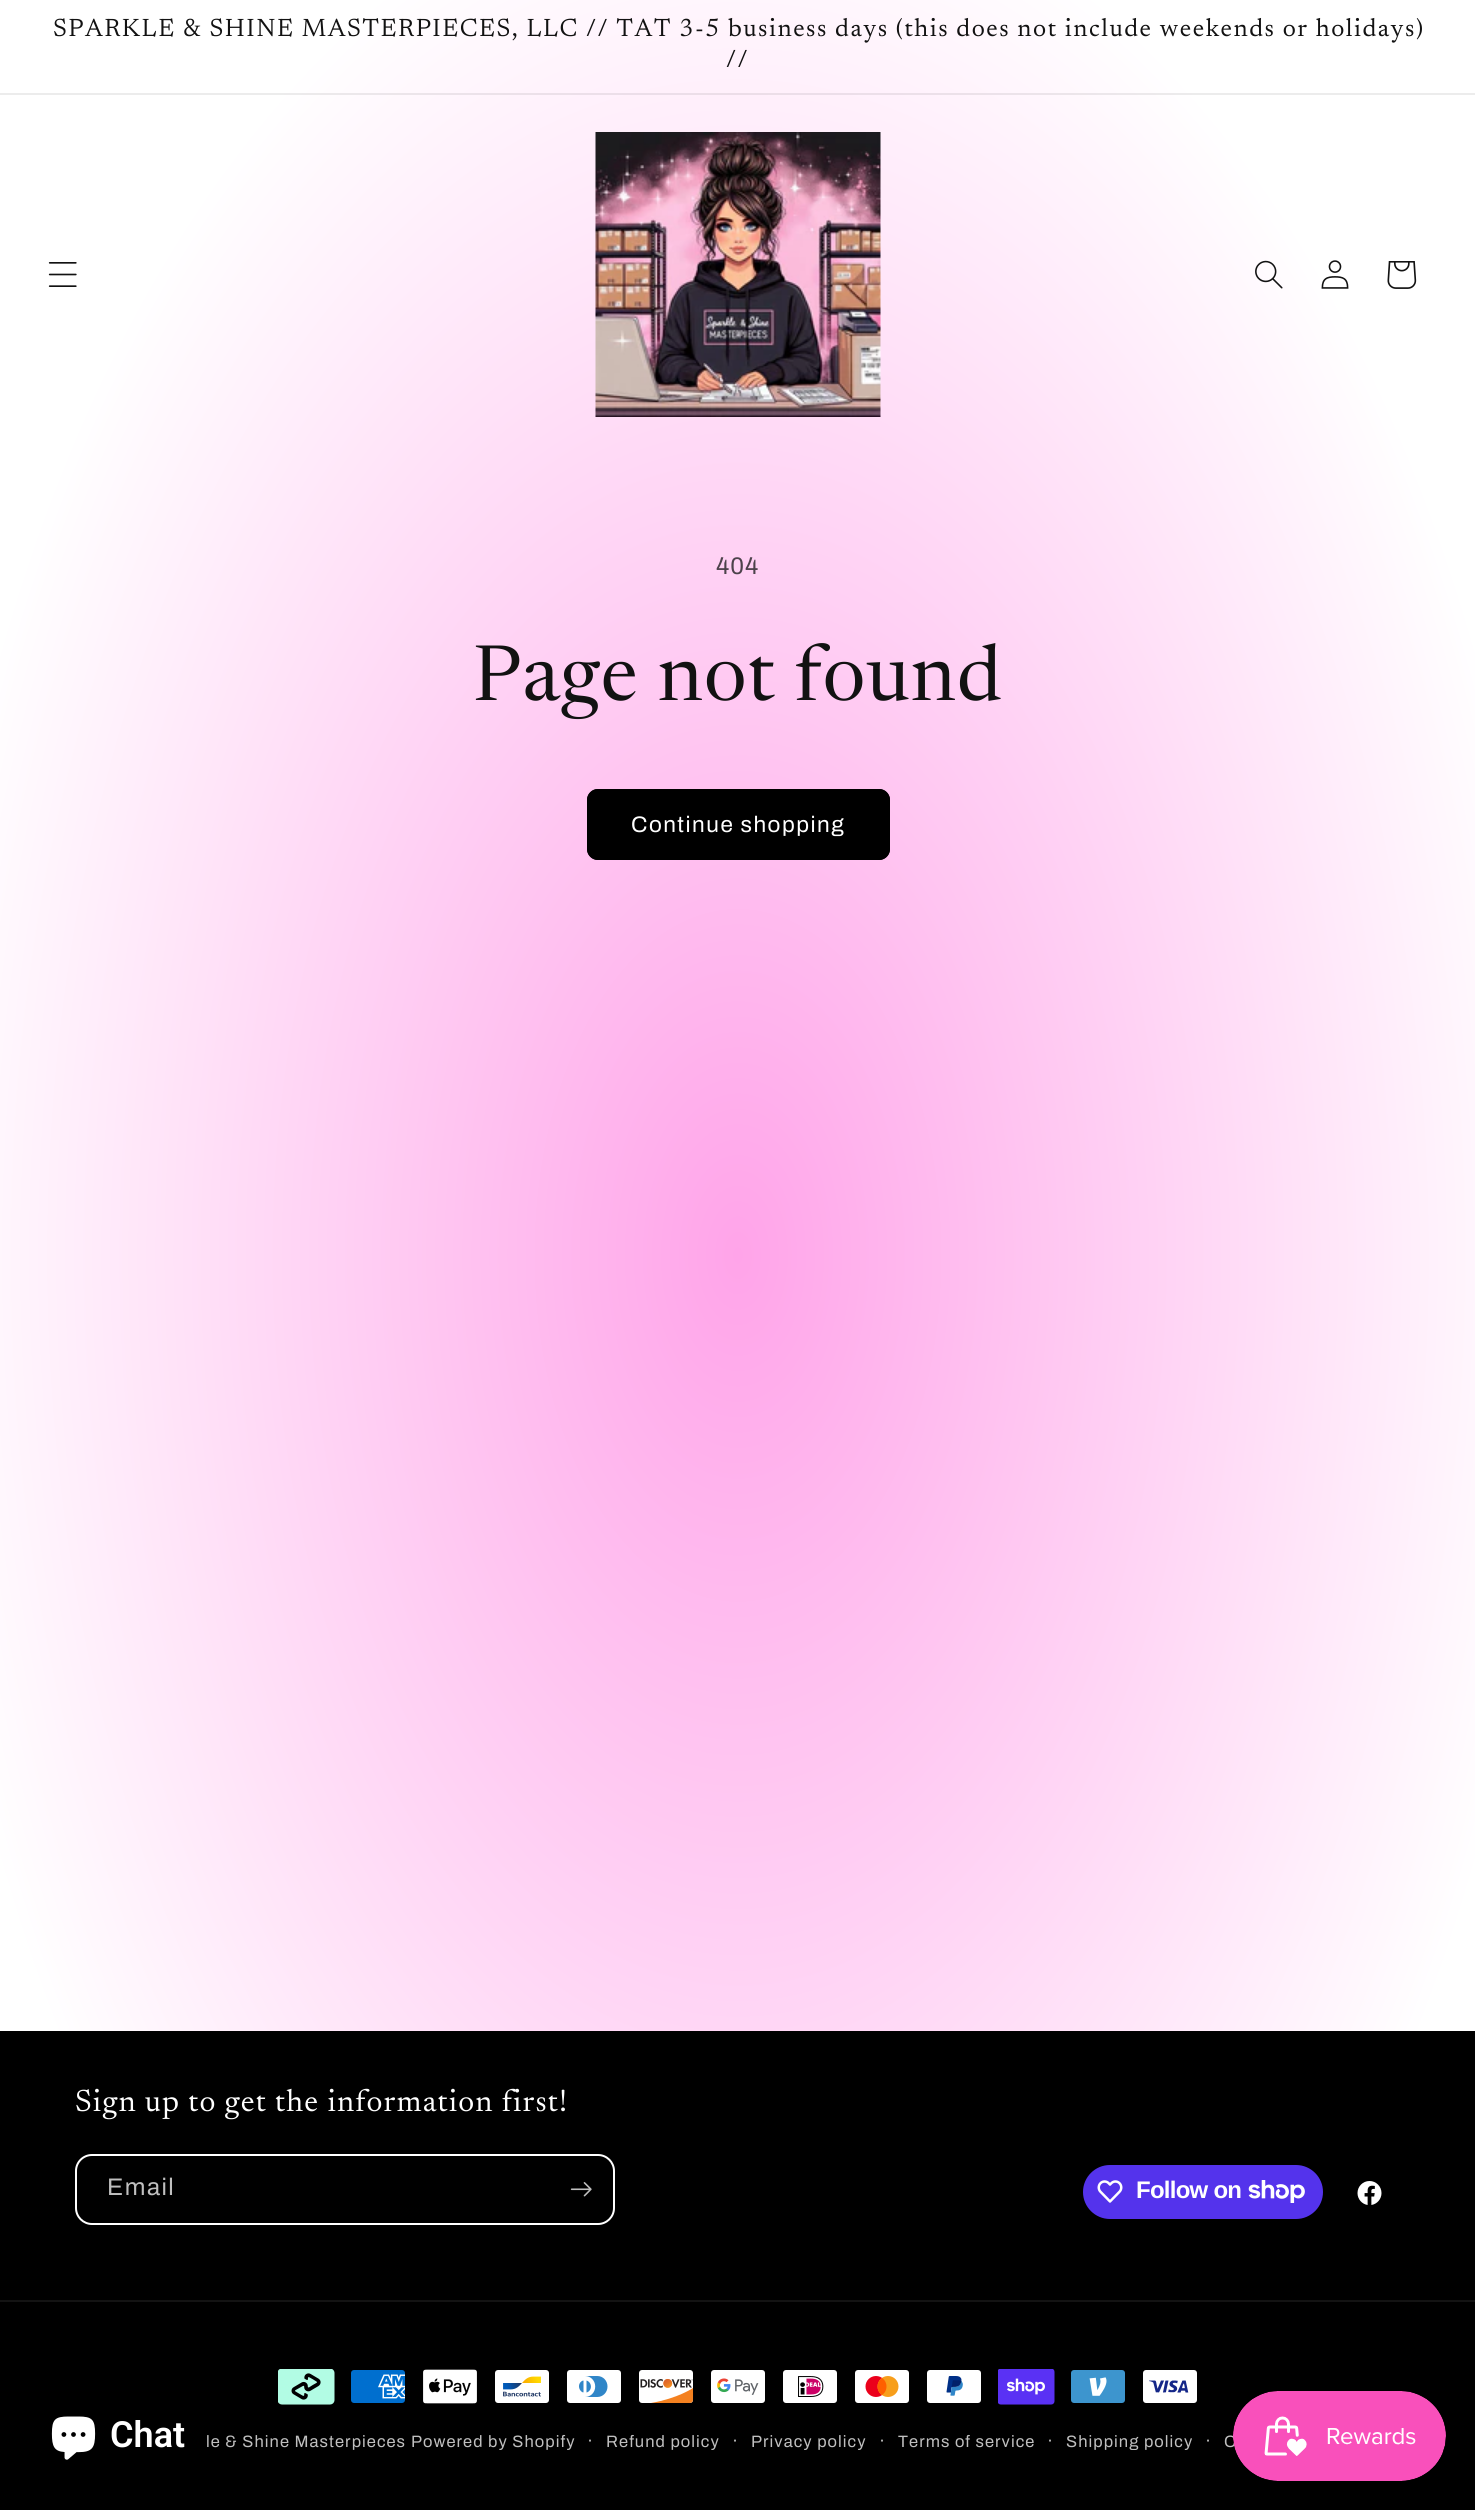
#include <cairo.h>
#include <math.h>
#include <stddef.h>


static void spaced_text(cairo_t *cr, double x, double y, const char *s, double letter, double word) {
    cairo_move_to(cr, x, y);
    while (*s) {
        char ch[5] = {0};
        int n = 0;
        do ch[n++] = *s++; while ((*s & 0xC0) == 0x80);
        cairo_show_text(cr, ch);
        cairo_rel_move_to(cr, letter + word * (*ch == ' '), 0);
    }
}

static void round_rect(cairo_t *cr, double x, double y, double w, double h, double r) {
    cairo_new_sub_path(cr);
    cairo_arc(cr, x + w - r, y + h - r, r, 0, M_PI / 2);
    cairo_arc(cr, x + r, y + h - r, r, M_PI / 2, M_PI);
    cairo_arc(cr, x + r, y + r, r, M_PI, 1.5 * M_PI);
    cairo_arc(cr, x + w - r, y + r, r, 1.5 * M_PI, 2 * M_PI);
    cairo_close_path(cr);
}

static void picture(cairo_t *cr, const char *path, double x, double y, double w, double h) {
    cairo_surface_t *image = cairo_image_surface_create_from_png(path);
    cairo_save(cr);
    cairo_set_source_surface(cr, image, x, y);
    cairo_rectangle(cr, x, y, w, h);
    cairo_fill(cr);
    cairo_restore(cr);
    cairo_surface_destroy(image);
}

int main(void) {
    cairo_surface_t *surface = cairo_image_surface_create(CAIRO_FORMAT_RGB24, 1475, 2510);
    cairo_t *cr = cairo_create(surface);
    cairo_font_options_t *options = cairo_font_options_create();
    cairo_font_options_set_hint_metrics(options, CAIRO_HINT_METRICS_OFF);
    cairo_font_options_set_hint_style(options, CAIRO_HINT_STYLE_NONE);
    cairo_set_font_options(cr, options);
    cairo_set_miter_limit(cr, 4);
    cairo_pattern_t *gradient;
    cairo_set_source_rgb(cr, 1, 1, 1);
    cairo_paint(cr);
    gradient = cairo_pattern_create_radial(0, 0, 0, 0, 0, 1);
    cairo_pattern_set_matrix(gradient, &(cairo_matrix_t){1.0 / 1044, 0, 0, 1.0 / 1776, -1.0 * 738 / 1044, -1.0 * 1256 / 1776});
    cairo_pattern_add_color_stop_rgba(gradient, 0, 1, 0.643, 0.914, 1);
    cairo_pattern_add_color_stop_rgba(gradient, 0.79, 1, 1, 1, 1);
    cairo_pattern_add_color_stop_rgba(gradient, 0.97, 1, 1, 1, 1);
    cairo_set_source(cr, gradient);
    cairo_pattern_destroy(gradient);
    cairo_rectangle(cr, 0, 0, 1475, 2031);
    cairo_fill(cr);
    gradient = cairo_pattern_create_radial(0, 0, 0, 0, 0, 1);
    cairo_pattern_set_matrix(gradient, &(cairo_matrix_t){1.0 / 1044, 0, 0, 1.0 / 1776, -1.0 * 738 / 1044, -1.0 * 1256 / 1776});
    cairo_pattern_add_color_stop_rgba(gradient, 0, 0.925, 0.596, 0.847, 1);
    cairo_pattern_add_color_stop_rgba(gradient, 0.79, 0.925, 0.925, 0.925, 1);
    cairo_pattern_add_color_stop_rgba(gradient, 0.97, 0.925, 0.925, 0.925, 1);
    cairo_set_source(cr, gradient);
    cairo_pattern_destroy(gradient);
    cairo_rectangle(cr, 0, 93, 1475, 2);
    cairo_fill(cr);
    cairo_select_font_face(cr, "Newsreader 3", CAIRO_FONT_SLANT_NORMAL, CAIRO_FONT_WEIGHT_NORMAL);
    cairo_set_font_size(cr, 25.35);
    cairo_set_source_rgb(cr, 0.071, 0.071, 0.071);
    spaced_text(cr, 53, 36, "SPARKLE & SHINE MASTERPIECES, LLC // TAT 3-5 business days (this does not include weekends or holidays)", 1.5, 0);
    spaced_text(cr, 726, 67, "//", 1.5, 0);
    picture(cr, "img1.png", 48, 262, 29, 25);
    picture(cr, "img2.png", 595, 132, 286, 285);
    picture(cr, "img3.png", 1255, 260, 28, 29);
    picture(cr, "img4.png", 1321, 260, 28, 29);
    picture(cr, "img5.png", 1387, 261, 30, 28);
    cairo_select_font_face(cr, "Archivo", CAIRO_FONT_SLANT_NORMAL, CAIRO_FONT_WEIGHT_NORMAL);
    cairo_set_font_size(cr, 24);
    cairo_set_source_rgb(cr, 0.302, 0.259, 0.294);
    spaced_text(cr, 716, 574, "404", 1, 0);
    cairo_select_font_face(cr, "Newsreader", CAIRO_FONT_SLANT_NORMAL, CAIRO_FONT_WEIGHT_NORMAL);
    cairo_set_font_size(cr, 78);
    cairo_set_source_rgb(cr, 0.071, 0.071, 0.071);
    spaced_text(cr, 473, 700, "Page not found", 1.15, 0);
    cairo_set_source_rgb(cr, 0, 0, 0);
    round_rect(cr, 587, 789, 303, 71, 11);
    cairo_fill(cr);
    round_rect(cr, 588, 790, 301, 69, 10);
    cairo_stroke(cr);
    cairo_select_font_face(cr, "Archivo", CAIRO_FONT_SLANT_NORMAL, CAIRO_FONT_WEIGHT_NORMAL);
    cairo_set_font_size(cr, 22.5);
    cairo_set_source_rgb(cr, 1, 1, 1);
    spaced_text(cr, 631, 832, "Continue shopping", 1.5, 0);
    cairo_set_source_rgb(cr, 0, 0, 0);
    cairo_rectangle(cr, 0, 2031, 1475, 479);
    cairo_fill(cr);
    cairo_select_font_face(cr, "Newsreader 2", CAIRO_FONT_SLANT_NORMAL, CAIRO_FONT_WEIGHT_NORMAL);
    cairo_set_font_size(cr, 31.25);
    cairo_set_source_rgb(cr, 1, 1, 1);
    spaced_text(cr, 75, 2111, "Sign up to get the information first!", 1.15, 0);
    round_rect(cr, 76, 2155, 538, 69, 16);
    cairo_stroke(cr);
    cairo_select_font_face(cr, "Archivo", CAIRO_FONT_SLANT_NORMAL, CAIRO_FONT_WEIGHT_NORMAL);
    cairo_set_font_size(cr, 24);
    cairo_set_source_rgb(cr, 0.749, 0.749, 0.749);
    spaced_text(cr, 107, 2195, "Email", 1.5, 0);
    picture(cr, "img6.png", 570, 2182, 22, 15);
    cairo_set_source_rgb(cr, 0.329, 0.2, 0.922);
    round_rect(cr, 1083, 2165, 240, 54, 27);
    cairo_fill(cr);
    picture(cr, "img7.png", 1097, 2180, 26, 23);
    cairo_select_font_face(cr, "Liberation Sans", CAIRO_FONT_SLANT_NORMAL, CAIRO_FONT_WEIGHT_BOLD);
    cairo_set_source_rgb(cr, 1, 1, 1);
    spaced_text(cr, 1136, 2198, "Follow on", -0.75, 0);
    picture(cr, "img8.png", 1248, 2180, 57, 23);
    picture(cr, "img9.png", 1357, 2181, 25, 24);
    cairo_set_source_rgb(cr, 0.078, 0.078, 0.078);
    cairo_rectangle(cr, 0, 2300, 1475, 2);
    cairo_fill(cr);
    picture(cr, "img10.png", 278, 2369, 57, 36);
    picture(cr, "img11.png", 351, 2370, 54, 33);
    picture(cr, "img12.png", 423, 2369, 54, 35);
    picture(cr, "img13.png", 495, 2370, 54, 33);
    picture(cr, "img14.png", 567, 2370, 54, 33);
    picture(cr, "img15.png", 639, 2370, 55, 33);
    picture(cr, "img16.png", 711, 2370, 54, 33);
    picture(cr, "img17.png", 783, 2370, 54, 33);
    picture(cr, "img18.png", 855, 2370, 54, 33);
    picture(cr, "img19.png", 927, 2370, 54, 33);
    picture(cr, "img20.png", 998, 2369, 57, 36);
    picture(cr, "img21.png", 1071, 2370, 54, 33);
    picture(cr, "img22.png", 1143, 2370, 54, 33);
    cairo_select_font_face(cr, "Archivo", CAIRO_FONT_SLANT_NORMAL, CAIRO_FONT_WEIGHT_NORMAL);
    cairo_set_font_size(cr, 16.5);
    cairo_set_source_rgb(cr, 0.749, 0.749, 0.749);
    spaced_text(cr, 206, 2447, "le & Shine Masterpieces", 1.05, 0);
    spaced_text(cr, 411, 2447, "Powered by Shopify", 1.05, 0);
    cairo_set_font_size(cr, 18);
    spaced_text(cr, 587, 2447, "·", 1.05, 0);
    cairo_set_font_size(cr, 16.5);
    spaced_text(cr, 606, 2447, "Refund policy", 1.05, 0);
    cairo_set_font_size(cr, 18);
    spaced_text(cr, 732, 2447, "·", 1.05, 0);
    cairo_set_font_size(cr, 16.5);
    spaced_text(cr, 751, 2447, "Privacy policy", 1.05, 0);
    cairo_set_font_size(cr, 18);
    spaced_text(cr, 879, 2447, "·", 1.05, 0);
    cairo_set_font_size(cr, 16.5);
    spaced_text(cr, 898, 2447, "Terms of service", 1.05, 0);
    cairo_set_font_size(cr, 18);
    spaced_text(cr, 1047, 2447, "·", 1.05, 0);
    cairo_set_font_size(cr, 16.5);
    spaced_text(cr, 1066, 2447, "Shipping policy", 1.05, 0);
    cairo_set_font_size(cr, 18);
    spaced_text(cr, 1205, 2447, "·", 1.05, 0);
    cairo_set_font_size(cr, 16.5);
    spaced_text(cr, 1224, 2447, "C", 1.05, 0);
    picture(cr, "img23.png", 1233, 2391, 213, 90);
    picture(cr, "img24.png", 51, 2416, 45, 44);
    cairo_select_font_face(cr, "Roboto SemiBold", CAIRO_FONT_SLANT_NORMAL, CAIRO_FONT_WEIGHT_NORMAL);
    cairo_set_font_size(cr, 36);
    cairo_set_source_rgb(cr, 1, 1, 1);
    cairo_move_to(cr, 110, 2447);
    cairo_show_text(cr, "Chat");
    cairo_surface_write_to_png(surface, "page.png");
    cairo_font_options_destroy(options);
    cairo_destroy(cr);
    cairo_surface_destroy(surface);
    return 0;
}
